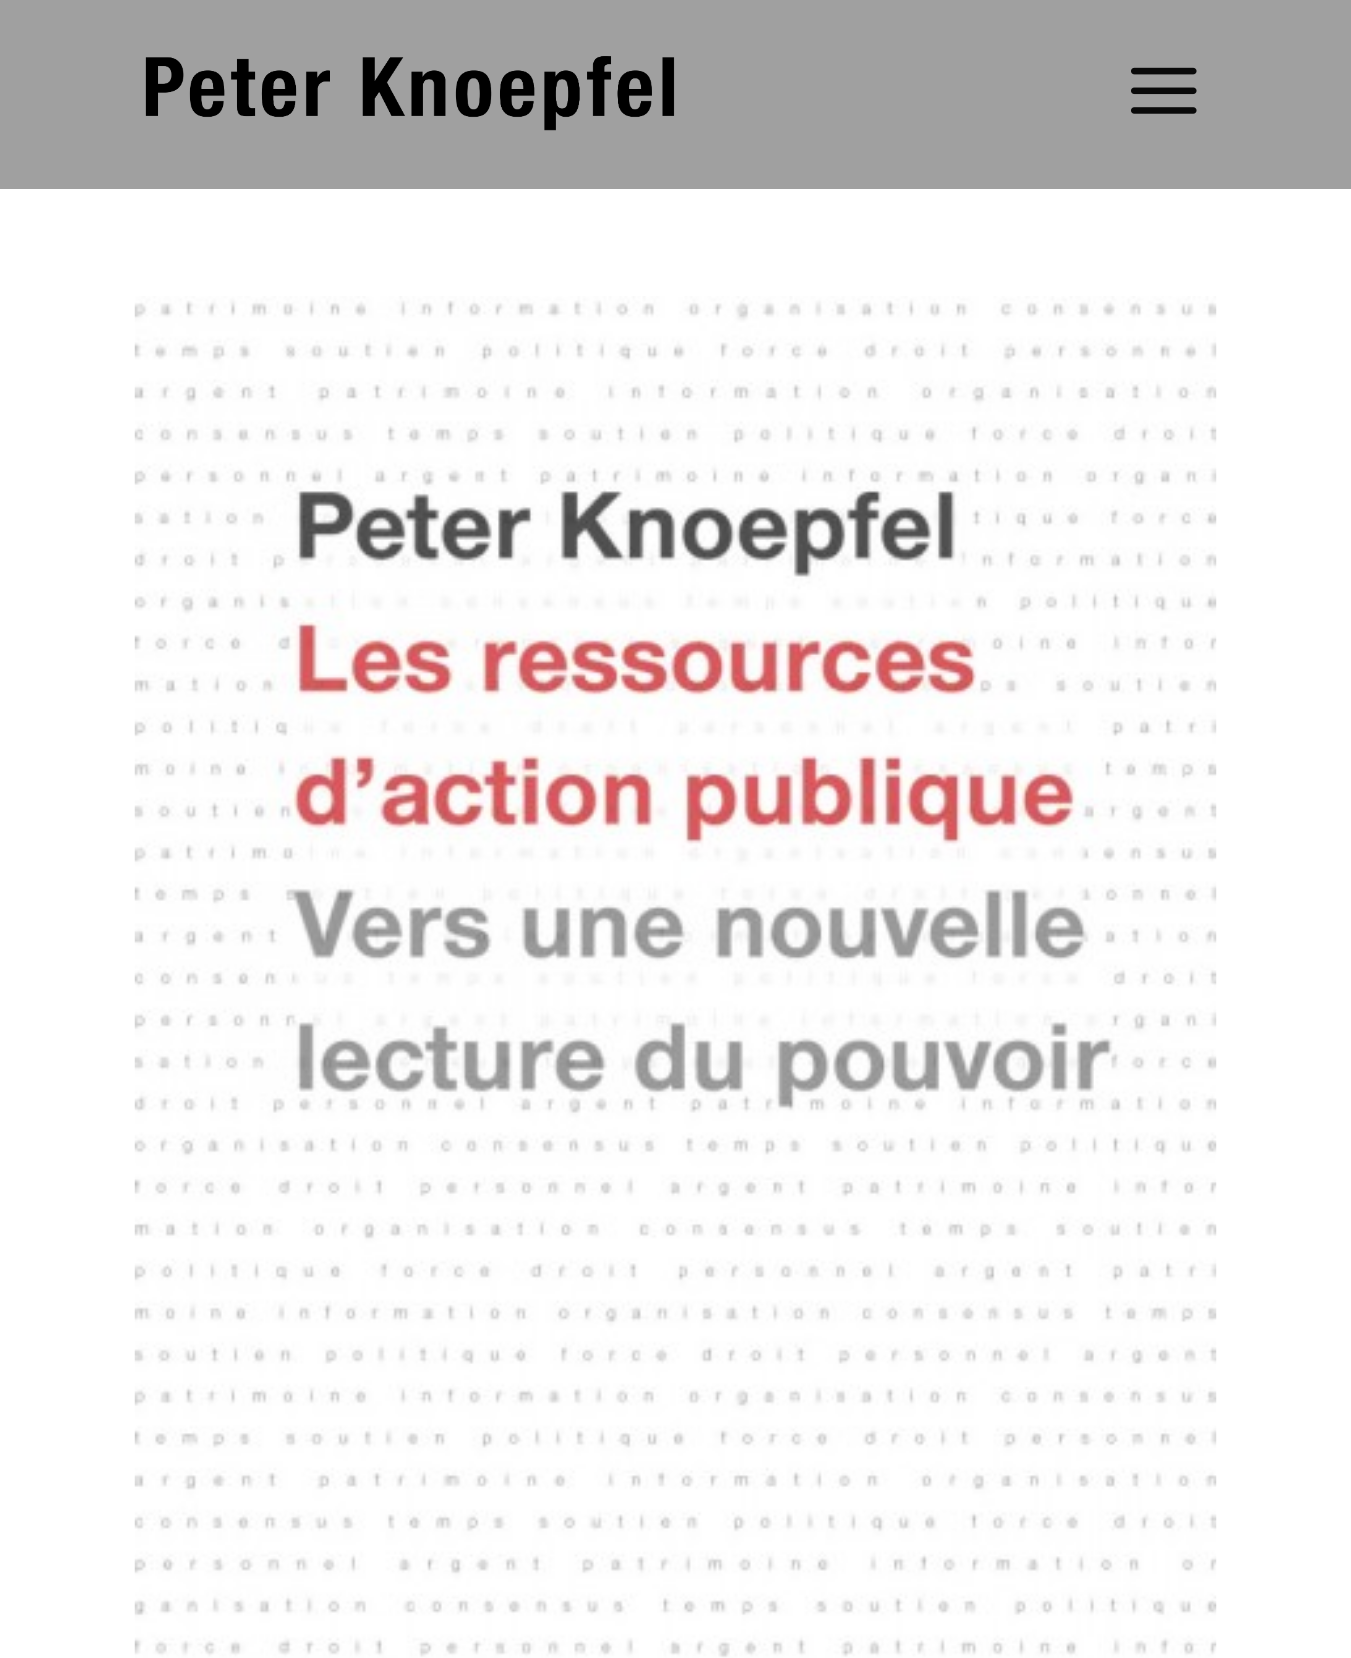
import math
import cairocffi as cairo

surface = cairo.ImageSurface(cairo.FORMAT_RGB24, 1351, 1658)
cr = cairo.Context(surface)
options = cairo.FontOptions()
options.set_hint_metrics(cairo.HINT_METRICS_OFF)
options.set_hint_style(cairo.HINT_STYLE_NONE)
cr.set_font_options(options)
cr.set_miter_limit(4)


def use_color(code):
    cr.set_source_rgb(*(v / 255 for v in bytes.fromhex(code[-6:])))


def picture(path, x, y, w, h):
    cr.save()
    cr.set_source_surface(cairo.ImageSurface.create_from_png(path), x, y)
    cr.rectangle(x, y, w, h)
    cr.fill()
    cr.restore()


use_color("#ffffff")
cr.paint()
use_color("#a0a0a0")
cr.rectangle(0, 0, 1351, 189)
cr.fill()
picture("img1.png", 145, 56, 530, 75)
picture("img2.png", 1131, 67, 66, 47)
picture("img3.png", 134, 296, 1083, 1362)
surface.write_to_png("result.png")
